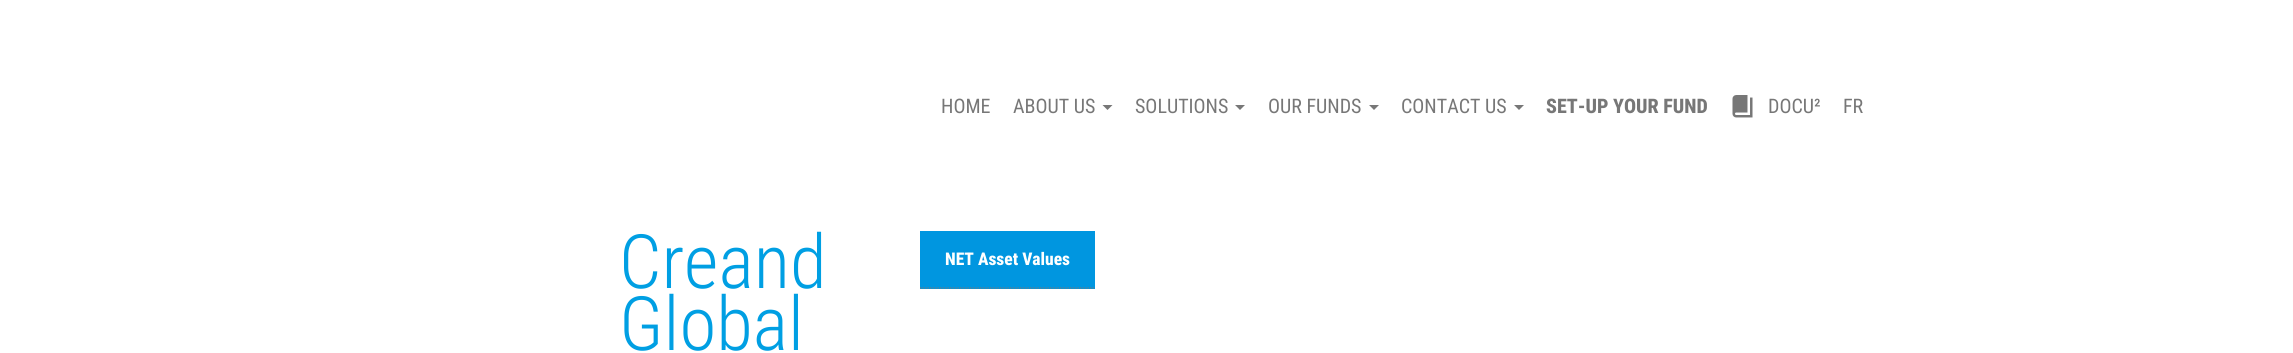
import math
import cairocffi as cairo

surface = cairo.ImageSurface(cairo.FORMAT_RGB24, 2293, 353)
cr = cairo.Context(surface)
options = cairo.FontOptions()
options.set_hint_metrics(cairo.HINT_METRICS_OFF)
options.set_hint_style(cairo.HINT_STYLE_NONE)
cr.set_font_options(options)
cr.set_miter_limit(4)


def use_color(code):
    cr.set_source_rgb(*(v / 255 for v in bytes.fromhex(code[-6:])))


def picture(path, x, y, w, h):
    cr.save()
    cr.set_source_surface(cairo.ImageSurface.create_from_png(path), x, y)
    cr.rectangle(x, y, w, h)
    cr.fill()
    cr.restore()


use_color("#ffffff")
cr.paint()
cr.select_font_face("Roboto Condensed")
cr.set_font_size(20)
use_color("#777777")
cr.move_to(941, 113)
cr.show_text("HOME")
cr.move_to(1013, 113)
cr.show_text("ABOUT US")
cr.new_path()
cr.move_to(1102.5, 105)
cr.line_to(1112.5, 105)
cr.line_to(1107.5, 110)
cr.close_path()
cr.fill()
cr.move_to(1135, 113)
cr.show_text("SOLUTIONS")
cr.new_path()
cr.move_to(1235, 105)
cr.line_to(1245, 105)
cr.line_to(1240, 110)
cr.close_path()
cr.fill()
cr.move_to(1268, 113)
cr.show_text("OUR FUNDS")
cr.new_path()
cr.move_to(1369, 105)
cr.line_to(1379, 105)
cr.line_to(1374, 110)
cr.close_path()
cr.fill()
cr.move_to(1401, 113)
cr.show_text("CONTACT US")
cr.new_path()
cr.move_to(1514, 105)
cr.line_to(1524, 105)
cr.line_to(1519, 110)
cr.close_path()
cr.fill()
cr.select_font_face("Roboto Condensed ExtraBold")
cr.move_to(1546, 113)
cr.show_text("SET-UP YOUR FUND")
picture("img1.png", 1732, 95, 21, 23)
cr.select_font_face("Roboto Condensed")
cr.move_to(1768, 113)
cr.show_text("DOCU²")
cr.move_to(1843, 113)
cr.show_text("FR")
cr.select_font_face("Roboto Condensed Light")
cr.set_font_size(75)
use_color("#009fe3")
cr.move_to(619, 288)
cr.show_text("Creand")
cr.move_to(619, 350)
cr.show_text("Global")
use_color("#0096e0")
cr.rectangle(920, 231, 175, 58)
cr.fill()
cr.new_path()
cr.move_to(920, 288)
cr.line_to(1095, 288)
use_color("#777777")
cr.set_line_width(1.2)
cr.set_dash([1.25, 1.25])
cr.stroke()
cr.select_font_face("Roboto Condensed ExtraBold")
cr.set_font_size(17.5)
use_color("#ffffff")
cr.move_to(945, 265)
cr.show_text("NET Asset Values")
surface.write_to_png("result.png")
